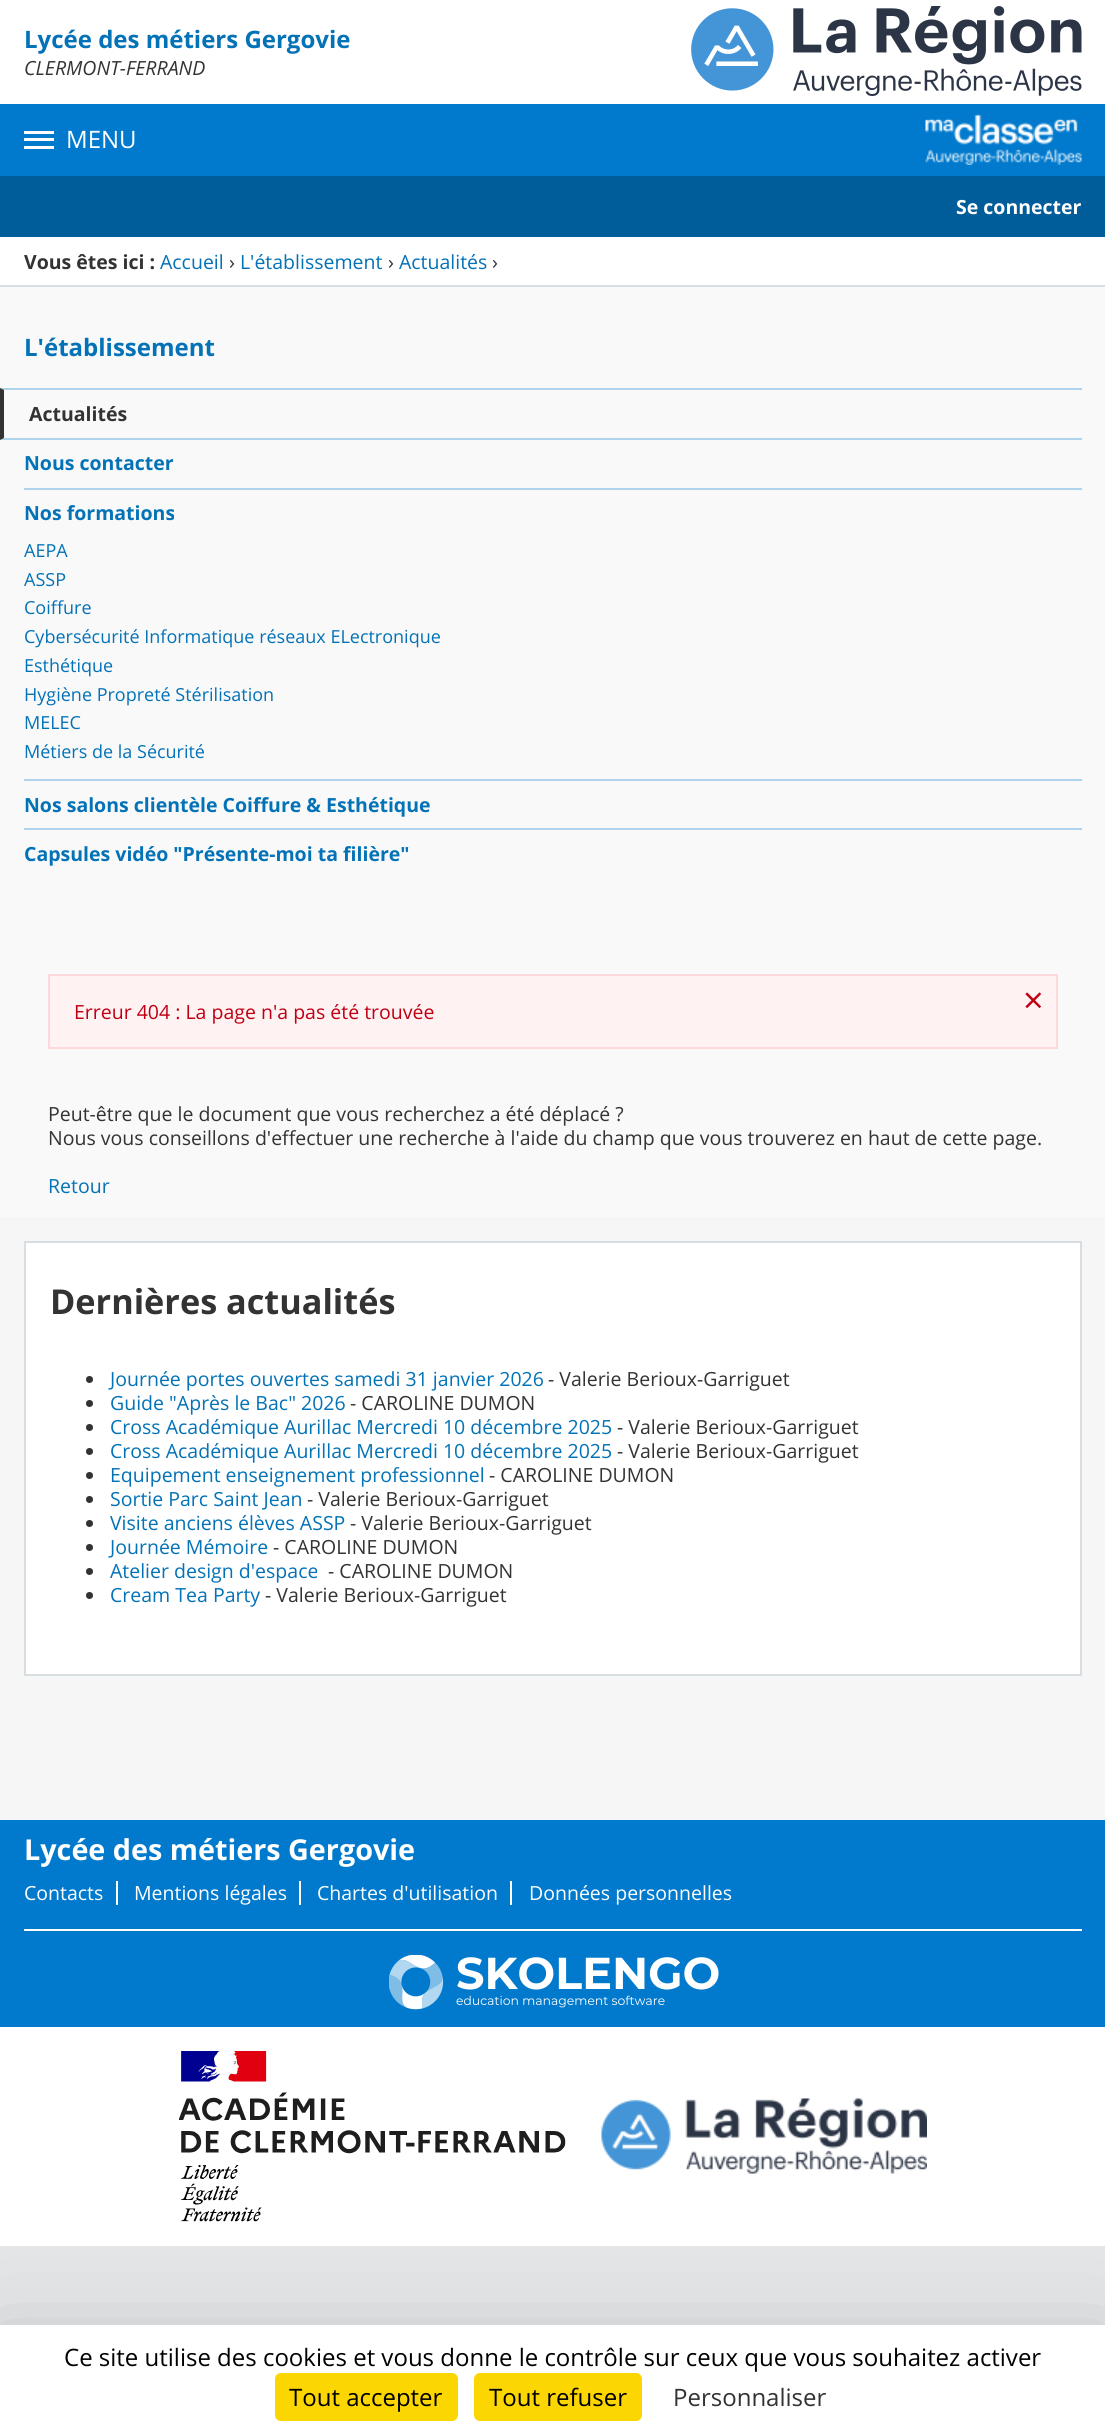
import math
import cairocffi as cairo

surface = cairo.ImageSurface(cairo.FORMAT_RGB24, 1105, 2435)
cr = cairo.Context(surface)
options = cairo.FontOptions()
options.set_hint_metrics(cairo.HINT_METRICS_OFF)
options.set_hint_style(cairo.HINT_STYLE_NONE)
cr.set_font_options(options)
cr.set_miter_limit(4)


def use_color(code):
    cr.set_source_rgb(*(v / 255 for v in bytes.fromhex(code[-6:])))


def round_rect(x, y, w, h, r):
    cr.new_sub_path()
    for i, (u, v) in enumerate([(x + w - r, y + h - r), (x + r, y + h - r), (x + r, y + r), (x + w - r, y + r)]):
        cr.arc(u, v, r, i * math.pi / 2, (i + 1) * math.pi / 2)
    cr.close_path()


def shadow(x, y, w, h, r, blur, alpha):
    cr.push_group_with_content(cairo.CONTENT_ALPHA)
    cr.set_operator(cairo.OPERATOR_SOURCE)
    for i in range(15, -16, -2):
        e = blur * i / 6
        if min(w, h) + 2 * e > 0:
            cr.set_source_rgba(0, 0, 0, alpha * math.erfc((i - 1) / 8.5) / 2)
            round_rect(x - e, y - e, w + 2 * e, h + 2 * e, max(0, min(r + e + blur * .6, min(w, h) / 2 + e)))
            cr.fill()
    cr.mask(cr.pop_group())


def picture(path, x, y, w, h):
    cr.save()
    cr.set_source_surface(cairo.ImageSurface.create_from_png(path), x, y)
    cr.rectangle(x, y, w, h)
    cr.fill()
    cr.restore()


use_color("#e4e5e7")
cr.paint()
use_color("#ffffff")
cr.rectangle(0, 0, 1105, 2246)
cr.fill()
cr.select_font_face("Open Sans", cairo.FONT_SLANT_NORMAL, cairo.FONT_WEIGHT_BOLD)
cr.set_font_size(24)
use_color("#0372b7")
cr.move_to(24, 48)
cr.show_text("Lycée des métiers Gergovie")
cr.select_font_face("Open Sans", cairo.FONT_SLANT_ITALIC)
cr.set_font_size(19.5)
use_color("#333333")
cr.move_to(24, 75)
cr.show_text("CLERMONT-FERRAND")
picture("img1.png", 691, 6, 391, 90)
use_color("#017acd")
cr.rectangle(0, 104, 1105, 72)
cr.fill()
picture("img2.png", 925, 114, 157, 51)
use_color("#ffffff")
cr.rectangle(24, 131, 30, 3)
cr.fill()
cr.rectangle(24, 138, 30, 3)
cr.fill()
cr.rectangle(24, 146, 30, 3)
cr.fill()
cr.select_font_face("Open Sans")
cr.set_font_size(24)
cr.move_to(66, 148)
cr.show_text("MENU")
use_color("#015c9a")
cr.rectangle(0, 176, 1105, 61)
cr.fill()
cr.select_font_face("Open Sans", cairo.FONT_SLANT_NORMAL, cairo.FONT_WEIGHT_BOLD)
cr.set_font_size(19.5)
use_color("#ffffff")
cr.move_to(956, 214)
cr.show_text("Se connecter")
use_color("#d7dee2")
cr.rectangle(0, 285, 1105, 2)
cr.fill()
use_color("#333333")
cr.move_to(24, 269)
cr.show_text("Vous êtes ici :")
cr.select_font_face("Open Sans")
use_color("#0372b7")
cr.move_to(160, 269)
cr.show_text("Accueil")
use_color("#333333")
cr.move_to(229, 269)
cr.show_text("›")
use_color("#0372b7")
cr.move_to(240, 269)
cr.show_text("L'établissement")
use_color("#333333")
cr.move_to(388, 269)
cr.show_text("›")
use_color("#0372b7")
cr.move_to(399, 269)
cr.show_text("Actualités")
use_color("#333333")
cr.move_to(492, 269)
cr.show_text("›")
use_color("#f9f9f9")
cr.rectangle(0, 287, 1105, 930)
cr.fill()
cr.select_font_face("Open Sans", cairo.FONT_SLANT_NORMAL, cairo.FONT_WEIGHT_BOLD)
cr.set_font_size(24)
use_color("#0372b7")
cr.move_to(24, 356)
cr.show_text("L'établissement")
use_color("#afd3ec")
cr.new_path()
cr.move_to(0, 388)
cr.line_to(1082, 388)
cr.line_to(1082, 390)
cr.line_to(4, 390)
cr.close_path()
cr.fill()
cr.new_path()
cr.move_to(1082, 440)
cr.line_to(0, 440)
cr.line_to(4, 438)
cr.line_to(1082, 438)
cr.close_path()
cr.fill()
use_color("#333333")
cr.new_path()
cr.move_to(0, 440)
cr.line_to(0, 388)
cr.line_to(4, 390)
cr.line_to(4, 438)
cr.close_path()
cr.fill()
cr.set_font_size(19.5)
cr.move_to(29, 421)
cr.show_text("Actualités")
use_color("#afd3ec")
cr.rectangle(24, 488, 1058, 2)
cr.fill()
use_color("#0372b7")
cr.move_to(24, 470)
cr.show_text("Nous contacter")
use_color("#afd3ec")
cr.rectangle(24, 779, 1058, 2)
cr.fill()
use_color("#0372b7")
cr.move_to(24, 520)
cr.show_text("Nos formations")
cr.select_font_face("Open Sans")
cr.set_font_size(18)
cr.move_to(24, 557)
cr.show_text("AEPA")
cr.move_to(24, 586)
cr.show_text("ASSP")
cr.move_to(24, 614)
cr.show_text("Coiffure")
cr.move_to(24, 643)
cr.show_text("Cybersécurité Informatique réseaux ELectronique")
cr.move_to(24, 672)
cr.show_text("Esthétique")
cr.move_to(24, 701)
cr.show_text("Hygiène Propreté Stérilisation")
cr.move_to(24, 729)
cr.show_text("MELEC")
cr.move_to(24, 758)
cr.show_text("Métiers de la Sécurité")
use_color("#afd3ec")
cr.rectangle(24, 828, 1058, 2)
cr.fill()
cr.select_font_face("Open Sans", cairo.FONT_SLANT_NORMAL, cairo.FONT_WEIGHT_BOLD)
cr.set_font_size(19.5)
use_color("#0372b7")
cr.move_to(24, 812)
cr.show_text("Nos salons clientèle Coiffure & Esthétique")
cr.move_to(24, 861)
cr.show_text("Capsules vidéo \"Présente-moi ta filière\"")
use_color("#fff2f3")
cr.rectangle(49, 975, 1008, 73)
cr.fill_preserve()
use_color("#ffd8dc")
cr.stroke()
cr.select_font_face("Open Sans")
cr.set_font_size(36)
use_color("#bf0013")
cr.move_to(1023, 1013)
cr.show_text("×")
cr.set_font_size(19.5)
cr.move_to(74, 1019)
cr.show_text("Erreur 404 : La page n'a pas été trouvée")
use_color("#333333")
cr.move_to(48, 1121)
cr.show_text("Peut-être que le document que vous recherchez a été déplacé ?")
cr.move_to(48, 1145)
cr.show_text("Nous vous conseillons d'effectuer une recherche à l'aide du champ que vous trouverez en haut de cette page.")
use_color("#0372b7")
cr.move_to(48, 1193)
cr.show_text("Retour")
use_color("#f6f6f6")
cr.rectangle(0, 1217, 1105, 603)
cr.fill()
use_color("#ffffff")
cr.rectangle(25, 1242, 1056, 433)
cr.fill_preserve()
use_color("#d7dee2")
cr.stroke()
cr.select_font_face("Open Sans", cairo.FONT_SLANT_NORMAL, cairo.FONT_WEIGHT_BOLD)
cr.set_font_size(34.25)
use_color("#333333")
cr.move_to(50, 1314)
cr.show_text("Dernières actualités")
cr.new_path()
cr.arc(89.5, 1379.5, 3.5, 0, 2 * math.pi)
cr.fill()
cr.select_font_face("Open Sans")
cr.set_font_size(19.5)
use_color("#0372b7")
cr.move_to(110, 1386)
cr.show_text("Journée portes ouvertes samedi 31 janvier 2026")
use_color("#333333")
cr.move_to(548, 1386)
cr.show_text("- Valerie Berioux-Garriguet")
cr.new_path()
cr.arc(89.5, 1403.5, 3.5, 0, 2 * math.pi)
cr.fill()
use_color("#0372b7")
cr.move_to(110, 1410)
cr.show_text("Guide \"Après le Bac\" 2026")
use_color("#333333")
cr.move_to(350, 1410)
cr.show_text("- CAROLINE DUMON")
cr.new_path()
cr.arc(89.5, 1427.5, 3.5, 0, 2 * math.pi)
cr.fill()
use_color("#0372b7")
cr.move_to(110, 1434)
cr.show_text("Cross Académique Aurillac Mercredi 10 décembre 2025")
use_color("#333333")
cr.move_to(617, 1434)
cr.show_text("- Valerie Berioux-Garriguet")
cr.new_path()
cr.arc(89.5, 1451.5, 3.5, 0, 2 * math.pi)
cr.fill()
use_color("#0372b7")
cr.move_to(110, 1458)
cr.show_text("Cross Académique Aurillac Mercredi 10 décembre 2025")
use_color("#333333")
cr.move_to(617, 1458)
cr.show_text("- Valerie Berioux-Garriguet")
cr.new_path()
cr.arc(89.5, 1475.5, 3.5, 0, 2 * math.pi)
cr.fill()
use_color("#0372b7")
cr.move_to(110, 1482)
cr.show_text("Equipement enseignement professionnel")
use_color("#333333")
cr.move_to(489, 1482)
cr.show_text("- CAROLINE DUMON")
cr.new_path()
cr.arc(89.5, 1499.5, 3.5, 0, 2 * math.pi)
cr.fill()
use_color("#0372b7")
cr.move_to(110, 1506)
cr.show_text("Sortie Parc Saint Jean")
use_color("#333333")
cr.move_to(307, 1506)
cr.show_text("- Valerie Berioux-Garriguet")
cr.new_path()
cr.arc(89.5, 1523.5, 3.5, 0, 2 * math.pi)
cr.fill()
use_color("#0372b7")
cr.move_to(110, 1530)
cr.show_text("Visite anciens élèves ASSP")
use_color("#333333")
cr.move_to(350, 1530)
cr.show_text("- Valerie Berioux-Garriguet")
cr.new_path()
cr.arc(89.5, 1547.5, 3.5, 0, 2 * math.pi)
cr.fill()
use_color("#0372b7")
cr.move_to(110, 1554)
cr.show_text("Journée Mémoire")
use_color("#333333")
cr.move_to(273, 1554)
cr.show_text("- CAROLINE DUMON")
cr.new_path()
cr.arc(89.5, 1571.5, 3.5, 0, 2 * math.pi)
cr.fill()
use_color("#0372b7")
cr.move_to(110, 1578)
cr.show_text("Atelier design d'espace")
use_color("#333333")
cr.move_to(328, 1578)
cr.show_text("- CAROLINE DUMON")
cr.new_path()
cr.arc(89.5, 1595.5, 3.5, 0, 2 * math.pi)
cr.fill()
use_color("#0372b7")
cr.move_to(110, 1602)
cr.show_text("Cream Tea Party")
use_color("#333333")
cr.move_to(265, 1602)
cr.show_text("- Valerie Berioux-Garriguet")
use_color("#017acd")
cr.rectangle(0, 1820, 1105, 207)
cr.fill()
cr.select_font_face("Open Sans", cairo.FONT_SLANT_NORMAL, cairo.FONT_WEIGHT_BOLD)
cr.set_font_size(28.75)
use_color("#ffffff")
cr.move_to(24, 1860)
cr.show_text("Lycée des métiers Gergovie")
cr.rectangle(116, 1881, 2, 24)
cr.fill()
cr.select_font_face("Open Sans")
cr.set_font_size(19.5)
cr.move_to(24, 1900)
cr.show_text("Contacts")
cr.rectangle(299, 1881, 2, 24)
cr.fill()
cr.move_to(134, 1900)
cr.show_text("Mentions légales")
cr.rectangle(510, 1881, 2, 24)
cr.fill()
cr.move_to(317, 1900)
cr.show_text("Chartes d'utilisation")
cr.move_to(529, 1900)
cr.show_text("Données personnelles")
cr.rectangle(24, 1929, 1058, 2)
cr.fill()
picture("img3.png", 389, 1955, 330, 55)
picture("img4.png", 179, 2051, 387, 171)
picture("img5.png", 601, 2098, 326, 76)
use_color("#000000")
shadow(0, 2355, 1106, 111, 0, 45, 0.25)
use_color("#ffffff")
cr.rectangle(0, 2325, 1105, 110)
cr.fill()
cr.set_font_size(24)
use_color("#000000")
cr.move_to(64, 2366)
cr.show_text("Ce site utilise des cookies et vous donne le contrôle sur ceux que vous souhaitez activer")
use_color("#fbd600")
round_rect(275, 2373, 183, 48, 6)
cr.fill()
use_color("#000000")
cr.move_to(289, 2406)
cr.show_text("Tout accepter")
use_color("#fbd600")
round_rect(474, 2373, 168, 48, 6)
cr.fill()
use_color("#000000")
cr.move_to(489, 2406)
cr.show_text("Tout refuser")
use_color("#333333")
cr.move_to(673, 2406)
cr.show_text("Personnaliser")
surface.write_to_png("result.png")
